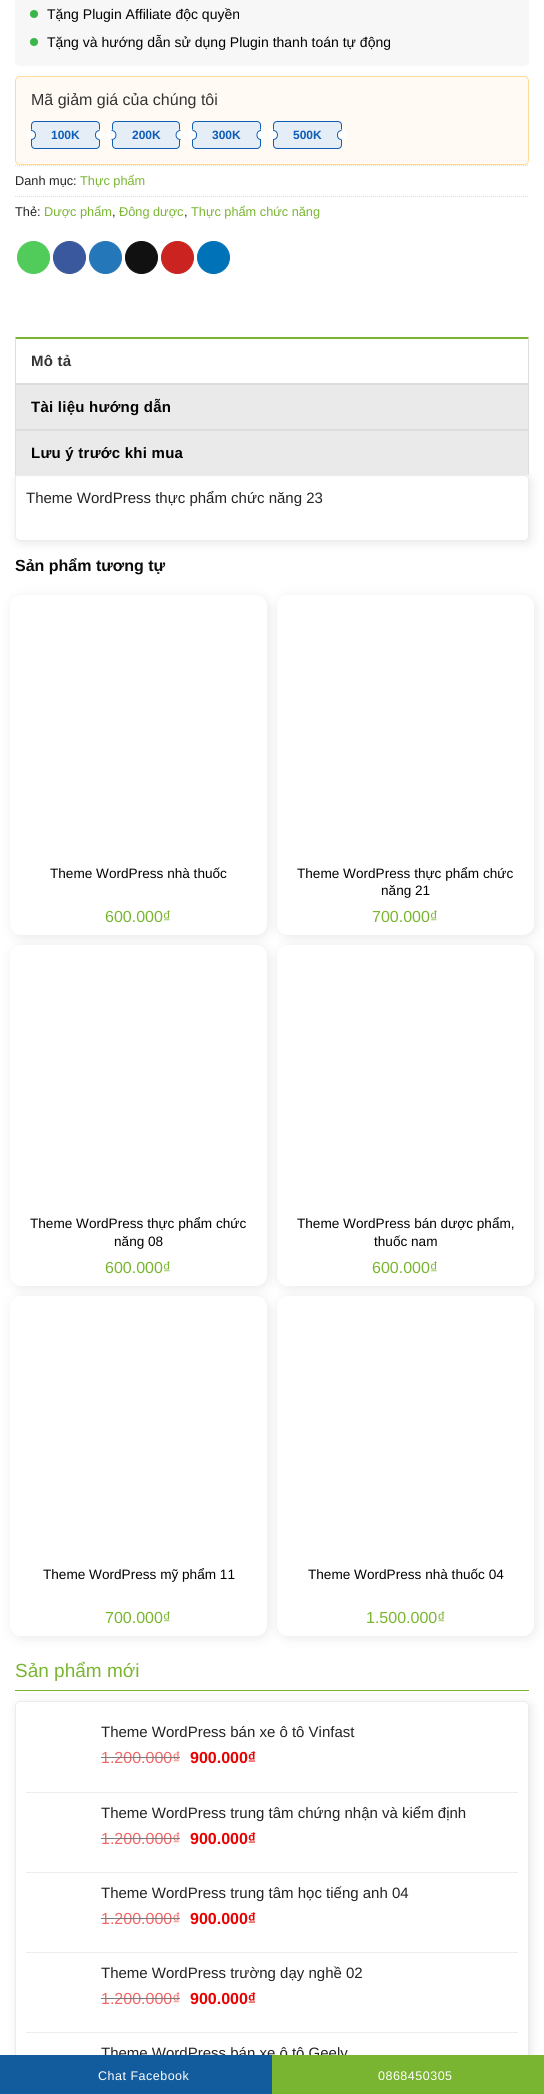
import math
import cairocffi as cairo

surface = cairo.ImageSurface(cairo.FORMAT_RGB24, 544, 2094)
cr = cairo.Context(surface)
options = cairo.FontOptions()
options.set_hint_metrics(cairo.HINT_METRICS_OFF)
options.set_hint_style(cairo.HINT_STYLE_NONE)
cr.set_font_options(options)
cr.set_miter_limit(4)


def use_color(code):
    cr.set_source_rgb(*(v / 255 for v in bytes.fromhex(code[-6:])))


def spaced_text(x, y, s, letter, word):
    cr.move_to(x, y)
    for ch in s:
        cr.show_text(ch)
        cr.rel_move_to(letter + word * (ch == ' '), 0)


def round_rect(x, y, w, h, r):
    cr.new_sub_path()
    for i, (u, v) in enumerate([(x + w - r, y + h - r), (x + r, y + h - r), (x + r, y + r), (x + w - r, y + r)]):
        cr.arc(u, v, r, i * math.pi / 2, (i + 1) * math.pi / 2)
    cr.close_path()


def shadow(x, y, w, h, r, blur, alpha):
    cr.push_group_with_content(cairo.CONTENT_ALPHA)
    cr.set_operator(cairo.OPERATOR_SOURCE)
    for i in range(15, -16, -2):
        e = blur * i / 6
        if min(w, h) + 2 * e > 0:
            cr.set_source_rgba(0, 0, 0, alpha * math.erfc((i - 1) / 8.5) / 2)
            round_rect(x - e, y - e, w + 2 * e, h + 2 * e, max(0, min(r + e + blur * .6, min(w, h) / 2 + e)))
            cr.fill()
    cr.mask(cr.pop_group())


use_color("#ffffff")
cr.paint()
use_color("#f7f7f7")
round_rect(15, -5, 514, 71, 5)
cr.fill()
use_color("#39b54a")
cr.arc(34, 14, 4, 0, 2 * math.pi)
cr.fill()
cr.select_font_face("Liberation Sans")
cr.set_font_size(14)
use_color("#000000")
cr.move_to(47, 19)
cr.show_text("Tặng Plugin Affiliate độc quyền")
use_color("#39b54a")
cr.new_path()
cr.arc(34, 42, 4, 0, 2 * math.pi)
cr.fill()
use_color("#000000")
cr.move_to(47, 47)
cr.show_text("Tặng và hướng dẫn sử dụng Plugin thanh toán tự động")
use_color("#fffbf4")
round_rect(15.5, 76.5, 513, 88, 4.5)
cr.fill_preserve()
use_color("#ffdb97")
cr.set_line_width(1)
cr.stroke()
cr.set_font_size(16)
use_color("#333333")
cr.move_to(31, 105)
cr.show_text("Mã giảm giá của chúng tôi")
use_color("#e5eef7")
round_rect(31.5, 121.5, 68, 27, 3.5)
cr.fill_preserve()
use_color("#0d5cb6")
cr.stroke()
use_color("#ffffff")
cr.new_path()
cr.move_to(27.5, 131)
cr.curve_to(32, 126.5, 39, 133.5, 34.5, 138.5)
cr.curve_to(30, 143, 23, 136, 27.5, 131)
cr.close_path()
cr.fill()
cr.new_path()
cr.move_to(31, 130.5)
cr.curve_to(37, 130.5, 37, 139.5, 31, 139.5)
use_color("#0d5cb6")
cr.stroke()
cr.select_font_face("Liberation Sans", cairo.FONT_SLANT_NORMAL, cairo.FONT_WEIGHT_BOLD)
cr.set_font_size(12)
cr.move_to(51, 139)
cr.show_text("100K")
use_color("#ffffff")
cr.new_path()
cr.move_to(103, 138.5)
cr.curve_to(98.5, 143, 91.5, 136, 96, 131)
cr.curve_to(101, 126.5, 108, 133.5, 103, 138.5)
cr.close_path()
cr.fill()
cr.new_path()
cr.move_to(99.5, 139.5)
cr.curve_to(94, 139.5, 94, 130.5, 99.5, 130.5)
use_color("#0d5cb6")
cr.stroke()
use_color("#e5eef7")
round_rect(112.5, 121.5, 67, 27, 3.5)
cr.fill_preserve()
use_color("#0d5cb6")
cr.stroke()
use_color("#ffffff")
cr.new_path()
cr.move_to(108, 131)
cr.curve_to(113, 126.5, 120, 133.5, 115, 138.5)
cr.curve_to(110.5, 143, 103.5, 136, 108, 131)
cr.close_path()
cr.fill()
cr.new_path()
cr.move_to(111.5, 130.5)
cr.curve_to(117.5, 130.5, 117.5, 139.5, 111.5, 139.5)
use_color("#0d5cb6")
cr.stroke()
cr.move_to(132, 139)
cr.show_text("200K")
use_color("#ffffff")
cr.new_path()
cr.move_to(184, 138.5)
cr.curve_to(179.5, 143, 172, 136, 177, 131)
cr.curve_to(181.5, 126.5, 188.5, 133.5, 184, 138.5)
cr.close_path()
cr.fill()
cr.new_path()
cr.move_to(180.5, 139.5)
cr.curve_to(174.5, 139.5, 174.5, 130.5, 180.5, 130.5)
use_color("#0d5cb6")
cr.stroke()
use_color("#e5eef7")
round_rect(192.5, 121.5, 68, 27, 3.5)
cr.fill_preserve()
use_color("#0d5cb6")
cr.stroke()
use_color("#ffffff")
cr.new_path()
cr.move_to(189, 131)
cr.curve_to(193.5, 126.5, 200.5, 133.5, 196, 138.5)
cr.curve_to(191.5, 143, 184, 136, 189, 131)
cr.close_path()
cr.fill()
cr.new_path()
cr.move_to(192.5, 130.5)
cr.curve_to(198, 130.5, 198, 139.5, 192.5, 139.5)
use_color("#0d5cb6")
cr.stroke()
cr.move_to(212, 139)
cr.show_text("300K")
use_color("#ffffff")
cr.new_path()
cr.move_to(264.5, 138.5)
cr.curve_to(260, 143, 253, 136, 257.5, 131)
cr.curve_to(262, 126.5, 269, 133.5, 264.5, 138.5)
cr.close_path()
cr.fill()
cr.new_path()
cr.move_to(261, 139.5)
cr.curve_to(255.5, 139.5, 255.5, 130.5, 261, 130.5)
use_color("#0d5cb6")
cr.stroke()
use_color("#e5eef7")
round_rect(273.5, 121.5, 68, 27, 3.5)
cr.fill_preserve()
use_color("#0d5cb6")
cr.stroke()
use_color("#ffffff")
cr.new_path()
cr.move_to(269.5, 131)
cr.curve_to(274, 126.5, 281, 133.5, 276.5, 138.5)
cr.curve_to(272, 143, 265, 136, 269.5, 131)
cr.close_path()
cr.fill()
cr.new_path()
cr.move_to(273, 130.5)
cr.curve_to(279, 130.5, 279, 139.5, 273, 139.5)
use_color("#0d5cb6")
cr.stroke()
cr.move_to(293, 139)
cr.show_text("500K")
use_color("#ffffff")
cr.new_path()
cr.move_to(345.5, 138.5)
cr.curve_to(340.5, 143, 333.5, 136, 338, 131)
cr.curve_to(343, 126.5, 350, 133.5, 345.5, 138.5)
cr.close_path()
cr.fill()
cr.new_path()
cr.move_to(341.5, 139.5)
cr.curve_to(336, 139.5, 336, 130.5, 341.5, 130.5)
use_color("#0d5cb6")
cr.stroke()
cr.new_path()
cr.move_to(15, 165.5)
cr.line_to(529, 165.5)
use_color("#dddddd")
cr.set_dash([1, 1])
cr.stroke()
cr.select_font_face("Liberation Sans")
cr.set_font_size(12.75)
use_color("#232323")
cr.move_to(15, 185)
cr.show_text("Danh mục:")
use_color("#79b530")
cr.move_to(80, 185)
cr.show_text("Thực phẩm")
cr.new_path()
cr.move_to(15, 196.5)
cr.line_to(529, 196.5)
use_color("#dddddd")
cr.stroke()
use_color("#232323")
cr.move_to(15, 216)
cr.show_text("Thẻ:")
use_color("#79b530")
cr.move_to(44, 216)
cr.show_text("Dược phẩm")
use_color("#232323")
cr.move_to(112, 216)
cr.show_text(",")
use_color("#79b530")
cr.move_to(119, 216)
cr.show_text("Đông dược")
use_color("#232323")
cr.move_to(184, 216)
cr.show_text(",")
use_color("#79b530")
cr.move_to(191, 216)
cr.show_text("Thực phẩm chức năng")
use_color("#51cb5a")
cr.new_path()
cr.arc(33.5, 257.5, 16, 0, 2 * math.pi)
cr.fill_preserve()
cr.set_dash([])
cr.stroke()
use_color("#3a589d")
cr.arc(69.5, 257.5, 16, 0, 2 * math.pi)
cr.fill_preserve()
cr.stroke()
use_color("#2478ba")
cr.arc(105.5, 257.5, 16, 0, 2 * math.pi)
cr.fill_preserve()
cr.stroke()
use_color("#111111")
cr.arc(141.5, 257.5, 16, 0, 2 * math.pi)
cr.fill_preserve()
cr.stroke()
use_color("#cb2320")
cr.arc(177.5, 257.5, 16, 0, 2 * math.pi)
cr.fill_preserve()
cr.stroke()
use_color("#0072b7")
cr.arc(213.5, 257.5, 16, 0, 2 * math.pi)
cr.fill_preserve()
cr.stroke()
use_color("#79b530")
cr.new_path()
cr.move_to(15, 337)
cr.line_to(529, 337)
cr.line_to(528, 339)
cr.line_to(16, 339)
cr.close_path()
cr.fill()
use_color("#dddddd")
cr.new_path()
cr.move_to(529, 337)
cr.line_to(529, 383)
cr.line_to(528, 383)
cr.line_to(528, 339)
cr.close_path()
cr.fill()
cr.new_path()
cr.move_to(15, 383)
cr.line_to(15, 337)
cr.line_to(16, 339)
cr.line_to(16, 383)
cr.close_path()
cr.fill()
cr.select_font_face("Liberation Sans", cairo.FONT_SLANT_NORMAL, cairo.FONT_WEIGHT_BOLD)
cr.set_font_size(15)
use_color("#333333")
spaced_text(31, 366, "Mô tả", 0.25, 0)
use_color("#eaeaea")
cr.rectangle(16, 385, 512, 44)
cr.fill()
use_color("#dddddd")
cr.rectangle(15, 383, 514, 2)
cr.fill()
cr.rectangle(528, 383, 1, 46)
cr.fill()
cr.rectangle(15, 383, 1, 46)
cr.fill()
use_color("#000000")
spaced_text(31, 412, "Tài liệu hướng dẫn", 0.25, 0)
use_color("#000000")
shadow(17, 477, 514, 66, 5, 5, 0.1)
use_color("#eaeaea")
cr.rectangle(16, 431, 512, 44)
cr.fill()
use_color("#dddddd")
cr.rectangle(15, 429, 514, 2)
cr.fill()
cr.rectangle(528, 429, 1, 46)
cr.fill()
cr.rectangle(15, 429, 1, 46)
cr.fill()
use_color("#000000")
spaced_text(31, 458, "Lưu ý trước khi mua", 0.25, 0)
use_color("#ffffff")
cr.new_path()
cr.move_to(15.5, 475.5)
cr.line_to(524, 475.5)
cr.curve_to(526.5, 475.5, 528.5, 477.5, 528.5, 480)
cr.line_to(528.5, 536)
cr.curve_to(528.5, 538.5, 526.5, 540.5, 524, 540.5)
cr.line_to(20, 540.5)
cr.curve_to(17.5, 540.5, 15.5, 538.5, 15.5, 536)
cr.close_path()
cr.fill_preserve()
use_color("#ececec")
cr.stroke()
cr.select_font_face("Liberation Sans")
use_color("#232323")
cr.move_to(26, 503)
cr.show_text("Theme WordPress thực phẩm chức năng 23")
cr.select_font_face("Liberation Sans", cairo.FONT_SLANT_NORMAL, cairo.FONT_WEIGHT_BOLD)
cr.set_font_size(16)
use_color("#0a0a0a")
cr.move_to(15, 571)
cr.show_text("Sản phẩm tương tự")
use_color("#000000")
shadow(12, 597, 257, 340, 11, 6, 0.09)
use_color("#ffffff")
round_rect(10, 595, 257, 340, 11)
cr.fill()
cr.select_font_face("Liberation Sans")
cr.set_font_size(13.6)
use_color("#000000")
cr.move_to(50, 878)
cr.show_text("Theme WordPress nhà thuốc")
cr.set_font_size(16)
use_color("#79b530")
cr.move_to(105, 922)
cr.show_text("600.000₫")
use_color("#000000")
shadow(279, 597, 257, 340, 11, 6, 0.09)
use_color("#ffffff")
round_rect(277, 595, 257, 340, 11)
cr.fill()
cr.set_font_size(13.6)
use_color("#000000")
cr.move_to(297, 878)
cr.show_text("Theme WordPress thực phẩm chức")
cr.move_to(381, 895)
cr.show_text("năng 21")
cr.set_font_size(16)
use_color("#79b530")
cr.move_to(372, 922)
cr.show_text("700.000₫")
use_color("#000000")
shadow(12, 947, 257, 341, 11, 6, 0.09)
use_color("#ffffff")
round_rect(10, 945, 257, 341, 11)
cr.fill()
cr.set_font_size(13.6)
use_color("#000000")
cr.move_to(30, 1228)
cr.show_text("Theme WordPress thực phẩm chức")
cr.move_to(114, 1246)
cr.show_text("năng 08")
cr.set_font_size(16)
use_color("#79b530")
cr.move_to(105, 1273)
cr.show_text("600.000₫")
use_color("#000000")
shadow(279, 947, 257, 341, 11, 6, 0.09)
use_color("#ffffff")
round_rect(277, 945, 257, 341, 11)
cr.fill()
cr.set_font_size(13.6)
use_color("#000000")
cr.move_to(297, 1228)
cr.show_text("Theme WordPress bán dược phẩm,")
cr.move_to(374, 1246)
cr.show_text("thuốc nam")
cr.set_font_size(16)
use_color("#79b530")
cr.move_to(372, 1273)
cr.show_text("600.000₫")
use_color("#000000")
shadow(12, 1298, 257, 340, 11, 6, 0.09)
use_color("#ffffff")
round_rect(10, 1296, 257, 340, 11)
cr.fill()
cr.set_font_size(13.6)
use_color("#000000")
cr.move_to(43, 1579)
cr.show_text("Theme WordPress mỹ phẩm 11")
cr.set_font_size(16)
use_color("#79b530")
cr.move_to(105, 1623)
cr.show_text("700.000₫")
use_color("#000000")
shadow(279, 1298, 257, 340, 11, 6, 0.09)
use_color("#ffffff")
round_rect(277, 1296, 257, 340, 11)
cr.fill()
cr.set_font_size(13.6)
use_color("#000000")
cr.move_to(308, 1579)
cr.show_text("Theme WordPress nhà thuốc 04")
cr.set_font_size(16)
use_color("#79b530")
cr.move_to(366, 1623)
cr.show_text("1.500.000₫")
cr.rectangle(15, 1690, 514, 1)
cr.fill()
cr.set_font_size(19)
cr.move_to(15, 1677)
cr.show_text("Sản phẩm mới")
cr.save()
cr.set_fill_rule(cairo.FILL_RULE_EVEN_ODD)
cr.new_path()
cr.move_to(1, 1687)
cr.line_to(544, 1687)
cr.line_to(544, 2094)
cr.line_to(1, 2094)
cr.close_path()
cr.move_to(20, 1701)
cr.line_to(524, 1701)
cr.curve_to(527, 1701, 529, 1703, 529, 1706)
cr.line_to(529, 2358)
cr.curve_to(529, 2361, 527, 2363, 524, 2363)
cr.line_to(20, 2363)
cr.curve_to(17, 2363, 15, 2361, 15, 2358)
cr.line_to(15, 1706)
cr.curve_to(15, 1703, 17, 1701, 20, 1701)
cr.close_path()
cr.clip()
use_color("#000000")
shadow(17, 1703, 514, 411, 5, 5, 0.1)
cr.restore()
round_rect(15.5, 1701.5, 513, 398, 4.5)
use_color("#ececec")
cr.stroke()
cr.set_font_size(15)
use_color("#232323")
cr.move_to(101, 1737)
cr.show_text("Theme WordPress bán xe ô tô Vinfast")
cr.set_font_size(16)
use_color("#f16666")
cr.move_to(101, 1763)
cr.show_text("1.200.000₫")
use_color("#7b7b7b")
cr.rectangle(101, 1757, 79, 1)
cr.fill()
cr.select_font_face("Liberation Sans", cairo.FONT_SLANT_NORMAL, cairo.FONT_WEIGHT_BOLD)
use_color("#e80000")
cr.move_to(190, 1763)
cr.show_text("900.000₫")
use_color("#ececec")
cr.rectangle(26, 1792, 492, 1)
cr.fill()
cr.select_font_face("Liberation Sans")
cr.set_font_size(15)
use_color("#232323")
cr.move_to(101, 1818)
cr.show_text("Theme WordPress trung tâm chứng nhận và kiểm định")
cr.set_font_size(16)
use_color("#f16666")
cr.move_to(101, 1844)
cr.show_text("1.200.000₫")
use_color("#7b7b7b")
cr.rectangle(101, 1838, 79, 1)
cr.fill()
cr.select_font_face("Liberation Sans", cairo.FONT_SLANT_NORMAL, cairo.FONT_WEIGHT_BOLD)
use_color("#e80000")
cr.move_to(190, 1844)
cr.show_text("900.000₫")
use_color("#ececec")
cr.rectangle(26, 1872, 492, 1)
cr.fill()
cr.select_font_face("Liberation Sans")
cr.set_font_size(15)
use_color("#232323")
cr.move_to(101, 1898)
cr.show_text("Theme WordPress trung tâm học tiếng anh 04")
cr.set_font_size(16)
use_color("#f16666")
cr.move_to(101, 1924)
cr.show_text("1.200.000₫")
use_color("#7b7b7b")
cr.rectangle(101, 1918, 79, 1)
cr.fill()
cr.select_font_face("Liberation Sans", cairo.FONT_SLANT_NORMAL, cairo.FONT_WEIGHT_BOLD)
use_color("#e80000")
cr.move_to(190, 1924)
cr.show_text("900.000₫")
use_color("#ececec")
cr.rectangle(26, 1952, 492, 1)
cr.fill()
cr.select_font_face("Liberation Sans")
cr.set_font_size(15)
use_color("#232323")
cr.move_to(101, 1978)
cr.show_text("Theme WordPress trường dạy nghề 02")
cr.set_font_size(16)
use_color("#f16666")
cr.move_to(101, 2004)
cr.show_text("1.200.000₫")
use_color("#7b7b7b")
cr.rectangle(101, 1998, 79, 1)
cr.fill()
cr.select_font_face("Liberation Sans", cairo.FONT_SLANT_NORMAL, cairo.FONT_WEIGHT_BOLD)
use_color("#e80000")
cr.move_to(190, 2004)
cr.show_text("900.000₫")
use_color("#ececec")
cr.rectangle(26, 2032, 492, 1)
cr.fill()
cr.select_font_face("Liberation Sans")
cr.set_font_size(15)
use_color("#232323")
cr.move_to(101, 2058)
cr.show_text("Theme WordPress bán xe ô tô Geely")
use_color("#125c9e")
cr.rectangle(0, 2055, 272, 39)
cr.fill()
cr.set_font_size(12.5)
use_color("#ffffff")
spaced_text(98, 2080, "Chat Facebook", 0.5, 0)
use_color("#79b530")
cr.rectangle(272, 2055, 272, 39)
cr.fill()
use_color("#ffffff")
spaced_text(378, 2080, "0868450305", 0.5, 0)
surface.write_to_png("result.png")
